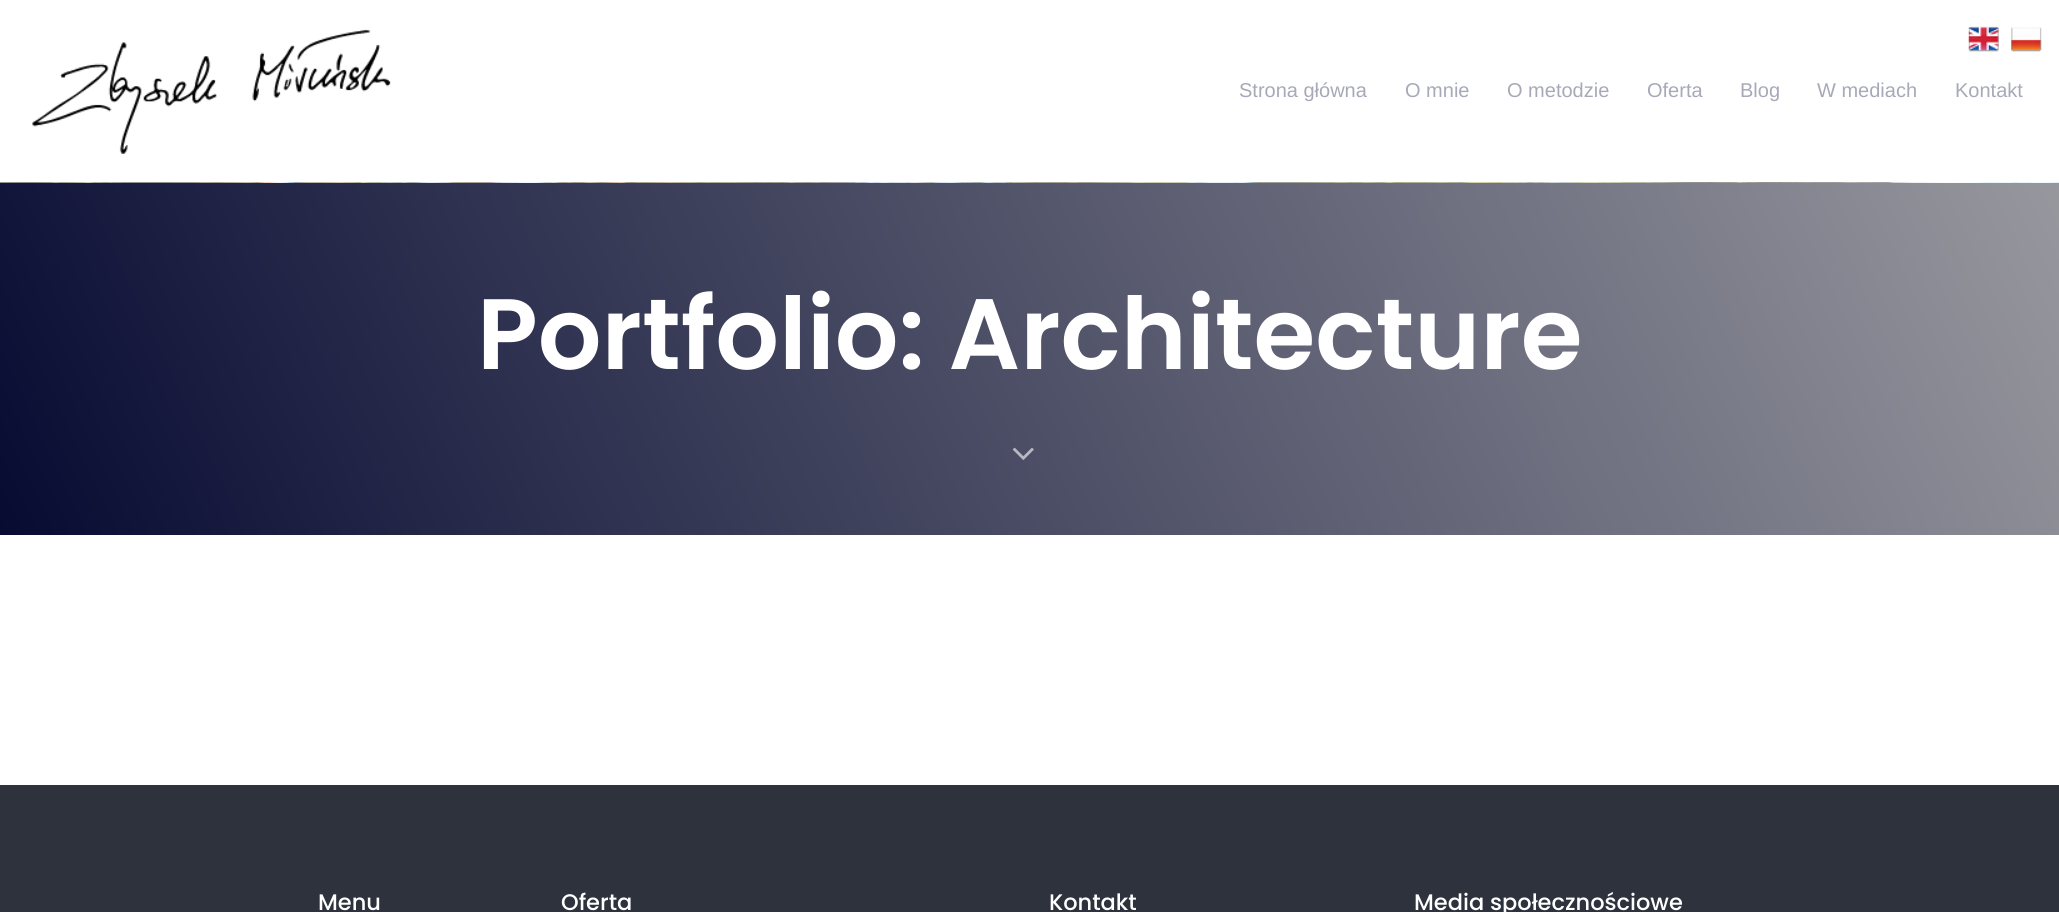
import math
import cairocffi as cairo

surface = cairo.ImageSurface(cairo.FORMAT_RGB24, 2059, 912)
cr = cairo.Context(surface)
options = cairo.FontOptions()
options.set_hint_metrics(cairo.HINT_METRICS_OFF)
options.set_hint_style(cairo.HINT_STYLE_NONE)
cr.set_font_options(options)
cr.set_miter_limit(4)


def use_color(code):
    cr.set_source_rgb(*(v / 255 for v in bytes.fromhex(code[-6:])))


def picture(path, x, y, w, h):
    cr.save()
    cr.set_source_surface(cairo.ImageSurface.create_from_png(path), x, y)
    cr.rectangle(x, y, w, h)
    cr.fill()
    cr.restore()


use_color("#ffffff")
cr.paint()
picture("img1.png", 1968, 26, 31, 26)
picture("img2.png", 2011, 27, 31, 25)
picture("img3.png", 32, 29, 359, 125)
cr.select_font_face("Liberation Sans")
cr.set_font_size(20)
use_color("#a7a9b8")
cr.move_to(1239, 97)
cr.show_text("Strona główna")
cr.move_to(1405, 97)
cr.show_text("O mnie")
cr.move_to(1507, 97)
cr.show_text("O metodzie")
cr.move_to(1647, 97)
cr.show_text("Oferta")
cr.move_to(1740, 97)
cr.show_text("Blog")
cr.move_to(1817, 97)
cr.show_text("W mediach")
cr.move_to(1955, 97)
cr.show_text("Kontakt")
picture("img4.png", 0, 182, 2059, 1)
gradient = cairo.LinearGradient(116, 785, 1944, -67)
gradient.add_color_stop_rgba(0, 0.027, 0.043, 0.196, 1)
gradient.add_color_stop_rgba(1, 0.592, 0.592, 0.62, 1)
cr.set_source(gradient)
cr.rectangle(0, 183, 2059, 352)
cr.fill()
cr.select_font_face("Poppins SemiBold")
cr.set_font_size(100)
use_color("#ffffff")
cr.move_to(477, 369)
cr.show_text("Portfolio: Architecture")
picture("img5.png", 1012, 447, 22, 13)
use_color("#2d323d")
cr.rectangle(0, 785, 2059, 127)
cr.fill()
cr.select_font_face("Poppins Medium")
cr.set_font_size(22.5)
use_color("#ffffff")
cr.move_to(318, 910)
cr.show_text("Menu")
cr.move_to(561, 910)
cr.show_text("Oferta")
cr.move_to(1049, 910)
cr.show_text("Kontakt")
cr.move_to(1414, 910)
cr.show_text("Media społecznościowe")
surface.write_to_png("result.png")
